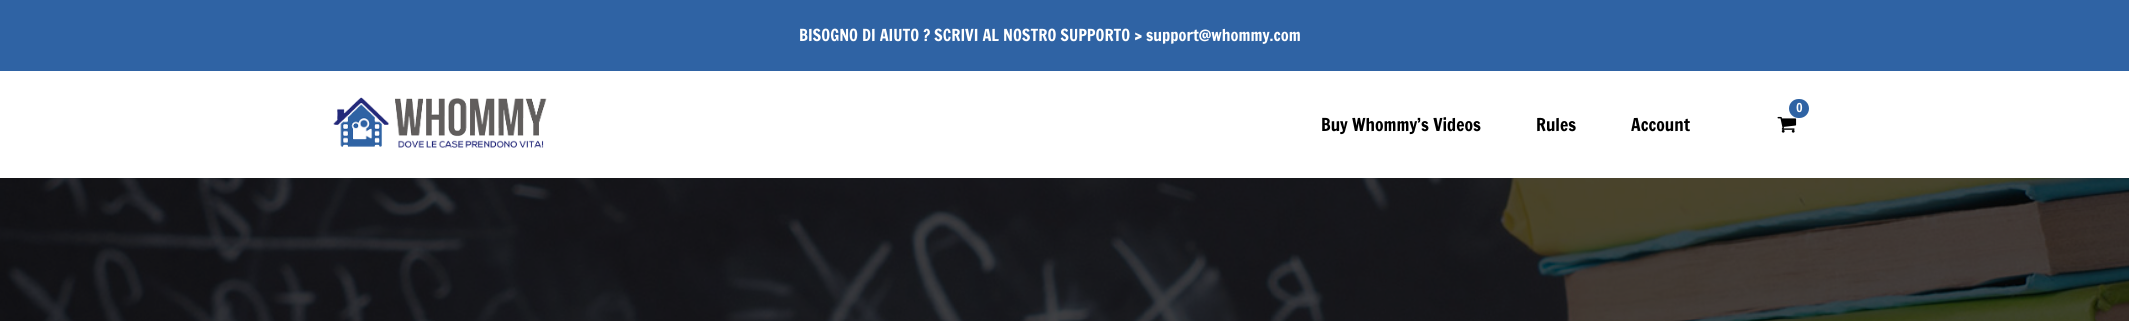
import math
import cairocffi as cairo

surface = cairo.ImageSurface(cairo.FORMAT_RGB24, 2129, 321)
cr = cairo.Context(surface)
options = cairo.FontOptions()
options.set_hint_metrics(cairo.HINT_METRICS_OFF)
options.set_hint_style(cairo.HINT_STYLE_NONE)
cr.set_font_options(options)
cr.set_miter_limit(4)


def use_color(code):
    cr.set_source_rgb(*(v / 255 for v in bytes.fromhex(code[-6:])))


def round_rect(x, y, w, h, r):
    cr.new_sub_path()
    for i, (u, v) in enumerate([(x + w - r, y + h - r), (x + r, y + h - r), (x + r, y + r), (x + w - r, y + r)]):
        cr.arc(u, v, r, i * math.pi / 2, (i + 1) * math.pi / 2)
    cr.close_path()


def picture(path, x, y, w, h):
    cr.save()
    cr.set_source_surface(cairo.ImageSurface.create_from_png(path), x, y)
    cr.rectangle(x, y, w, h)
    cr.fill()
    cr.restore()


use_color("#ffffff")
cr.paint()
use_color("#2f63a4")
cr.rectangle(0, 0, 2129, 71)
cr.fill()
cr.select_font_face("Francois One")
cr.set_font_size(16.25)
use_color("#ffffff")
cr.move_to(799, 41)
cr.show_text("BISOGNO DI AIUTO ? SCRIVI AL NOSTRO SUPPORTO > support@whommy.com")
picture("img1.png", 333, 97, 214, 51)
picture("img2.png", 1777, 116, 20, 17)
use_color("#2f63a4")
round_rect(1789, 99, 20, 19, 9.5)
cr.fill()
cr.set_font_size(12)
use_color("#ffffff")
cr.move_to(1796, 112)
cr.show_text("0")
cr.set_font_size(17.5)
use_color("#000000")
cr.move_to(1321, 131)
cr.show_text("Buy Whommy’s Videos")
cr.move_to(1536, 131)
cr.show_text("Rules")
cr.move_to(1631, 131)
cr.show_text("Account")
picture("img3.png", 0, 178, 2129, 143)
surface.write_to_png("result.png")
